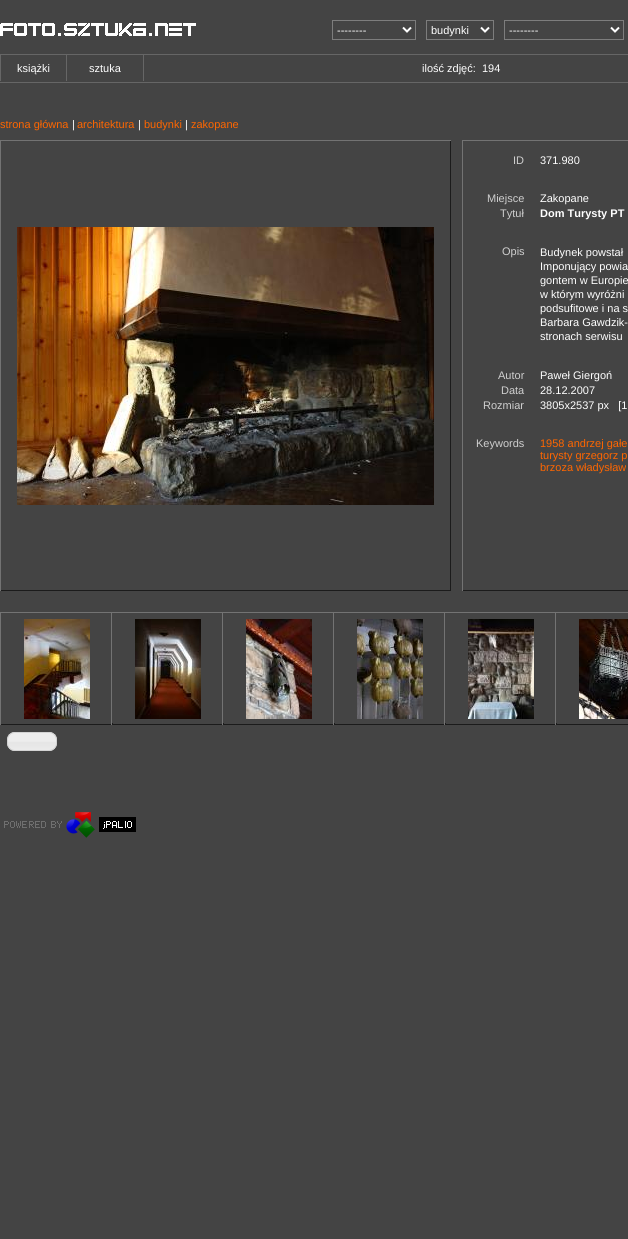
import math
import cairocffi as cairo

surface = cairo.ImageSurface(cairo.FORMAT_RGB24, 628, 1239)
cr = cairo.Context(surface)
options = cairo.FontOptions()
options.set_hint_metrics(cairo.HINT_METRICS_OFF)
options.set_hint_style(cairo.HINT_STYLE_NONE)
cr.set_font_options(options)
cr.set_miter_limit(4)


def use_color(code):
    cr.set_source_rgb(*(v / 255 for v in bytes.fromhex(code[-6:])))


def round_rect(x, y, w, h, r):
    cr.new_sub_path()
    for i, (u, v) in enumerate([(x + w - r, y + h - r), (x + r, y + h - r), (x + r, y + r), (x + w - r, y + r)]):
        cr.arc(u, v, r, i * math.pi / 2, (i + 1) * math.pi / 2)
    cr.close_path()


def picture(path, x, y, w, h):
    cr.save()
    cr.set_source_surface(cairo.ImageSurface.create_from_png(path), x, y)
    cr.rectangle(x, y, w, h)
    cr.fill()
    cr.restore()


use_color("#444444")
cr.paint()
picture("img1.png", 0, 23, 61, 13)
picture("img2.png", 64, 23, 132, 13)
cr.rectangle(332.5, 20.5, 83, 19)
use_color("#7d7d7d")
cr.set_line_width(1)
cr.stroke()
cr.new_path()
cr.move_to(403, 27.5)
cr.line_to(407, 31.5)
cr.line_to(411, 27.5)
use_color("#ffffff")
cr.set_line_width(2)
cr.stroke()
cr.select_font_face("Liberation Sans")
cr.set_font_size(11)
cr.move_to(337, 34)
cr.show_text("--------")
cr.rectangle(426.5, 20.5, 67, 19)
use_color("#7d7d7d")
cr.set_line_width(1)
cr.stroke()
cr.new_path()
cr.move_to(481, 27.5)
cr.line_to(485, 31.5)
cr.line_to(489, 27.5)
use_color("#ffffff")
cr.set_line_width(2)
cr.stroke()
cr.move_to(431, 34)
cr.show_text("budynki")
cr.rectangle(504.5, 20.5, 119, 19)
use_color("#7d7d7d")
cr.set_line_width(1)
cr.stroke()
cr.new_path()
cr.move_to(611, 27.5)
cr.line_to(615, 31.5)
cr.line_to(619, 27.5)
use_color("#ffffff")
cr.set_line_width(2)
cr.stroke()
cr.move_to(509, 34)
cr.show_text("--------")
use_color("#666666")
cr.rectangle(0, 54, 628, 1)
cr.fill()
cr.rectangle(0, 55, 1, 26)
cr.fill()
use_color("#ffffff")
cr.move_to(17, 72)
cr.show_text("książki")
use_color("#666666")
cr.rectangle(66, 55, 1, 26)
cr.fill()
use_color("#ffffff")
cr.move_to(89, 72)
cr.show_text("sztuka")
use_color("#666666")
cr.rectangle(143, 55, 1, 26)
cr.fill()
use_color("#ffffff")
cr.move_to(422, 72)
cr.show_text("ilość zdjęć:  194")
use_color("#666666")
cr.rectangle(0, 82, 628, 1)
cr.fill()
use_color("#ff6600")
cr.move_to(0, 128)
cr.show_text("strona główna")
use_color("#ffffff")
cr.move_to(72, 128)
cr.show_text("|")
use_color("#ff6600")
cr.move_to(77, 128)
cr.show_text("architektura")
use_color("#ffffff")
cr.move_to(138, 128)
cr.show_text("|")
use_color("#ff6600")
cr.move_to(144, 128)
cr.show_text("budynki")
use_color("#ffffff")
cr.move_to(185, 128)
cr.show_text("|")
use_color("#ff6600")
cr.move_to(191, 128)
cr.show_text("zakopane")
use_color("#737373")
cr.rectangle(0, 140, 451, 1)
cr.fill()
cr.rectangle(0, 141, 1, 450)
cr.fill()
picture("img3.png", 17, 227, 417, 278)
use_color("#1b1b1b")
cr.rectangle(450, 141, 1, 449)
cr.fill()
cr.rectangle(1, 590, 450, 1)
cr.fill()
use_color("#737373")
cr.rectangle(462, 140, 166, 1)
cr.fill()
cr.rectangle(462, 141, 1, 450)
cr.fill()
use_color("#cfcfcf")
cr.move_to(513, 164)
cr.show_text("ID")
use_color("#ffffff")
cr.move_to(540, 164)
cr.show_text("371.980")
use_color("#cfcfcf")
cr.move_to(487, 202)
cr.show_text("Miejsce")
use_color("#ffffff")
cr.move_to(540, 202)
cr.show_text("Zakopane")
use_color("#cfcfcf")
cr.move_to(500, 217)
cr.show_text("Tytuł")
cr.select_font_face("Liberation Sans", cairo.FONT_SLANT_NORMAL, cairo.FONT_WEIGHT_BOLD)
use_color("#ffffff")
cr.move_to(540, 217)
cr.show_text("Dom Turysty PT")
cr.select_font_face("Liberation Sans")
use_color("#cfcfcf")
cr.move_to(502, 255)
cr.show_text("Opis")
use_color("#ffffff")
cr.move_to(540, 256)
cr.show_text("Budynek powstał")
cr.move_to(540, 270)
cr.show_text("Imponujący powia")
cr.move_to(540, 284)
cr.show_text("gontem w Europie")
cr.move_to(540, 298)
cr.show_text("w którym wyróżni")
cr.move_to(540, 312)
cr.show_text("podsufitowe i na s")
cr.move_to(540, 326)
cr.show_text("Barbara Gawdzik-")
cr.move_to(540, 340)
cr.show_text("stronach serwisu")
use_color("#cfcfcf")
cr.move_to(498, 379)
cr.show_text("Autor")
use_color("#ffffff")
cr.move_to(540, 379)
cr.show_text("Paweł Giergoń")
use_color("#cfcfcf")
cr.move_to(501, 394)
cr.show_text("Data")
use_color("#ffffff")
cr.move_to(540, 394)
cr.show_text("28.12.2007")
use_color("#cfcfcf")
cr.move_to(483, 409)
cr.show_text("Rozmiar")
use_color("#ffffff")
cr.move_to(540, 409)
cr.show_text("3805x2537 px   [1")
use_color("#cfcfcf")
cr.move_to(476, 447)
cr.show_text("Keywords")
use_color("#ff6600")
cr.move_to(540, 447)
cr.show_text("1958 andrzej gałe")
cr.move_to(540, 459)
cr.show_text("turysty grzegorz p")
cr.move_to(540, 471)
cr.show_text("brzoza władysław")
use_color("#1b1b1b")
cr.rectangle(463, 590, 165, 1)
cr.fill()
use_color("#737373")
cr.rectangle(0, 612, 628, 1)
cr.fill()
use_color("#1b1b1b")
cr.rectangle(112, 723, 1, 2)
cr.fill()
cr.rectangle(0, 724, 113, 1)
cr.fill()
use_color("#737373")
cr.rectangle(0, 612, 1, 113)
cr.fill()
picture("img4.png", 24, 619, 66, 100)
use_color("#1b1b1b")
cr.rectangle(223, 723, 1, 2)
cr.fill()
cr.rectangle(111, 724, 113, 1)
cr.fill()
use_color("#737373")
cr.rectangle(111, 612, 1, 113)
cr.fill()
picture("img5.png", 135, 619, 66, 100)
use_color("#1b1b1b")
cr.rectangle(334, 723, 1, 2)
cr.fill()
cr.rectangle(222, 724, 113, 1)
cr.fill()
use_color("#737373")
cr.rectangle(222, 612, 1, 113)
cr.fill()
picture("img6.png", 246, 619, 66, 100)
use_color("#1b1b1b")
cr.rectangle(445, 723, 1, 2)
cr.fill()
cr.rectangle(333, 724, 113, 1)
cr.fill()
use_color("#737373")
cr.rectangle(333, 612, 1, 113)
cr.fill()
picture("img7.png", 357, 619, 66, 100)
use_color("#1b1b1b")
cr.rectangle(556, 723, 1, 2)
cr.fill()
cr.rectangle(444, 724, 184, 1)
cr.fill()
use_color("#737373")
cr.rectangle(444, 612, 1, 113)
cr.fill()
picture("img8.png", 468, 619, 66, 100)
cr.rectangle(555, 612, 1, 113)
cr.fill()
picture("img9.png", 579, 619, 49, 100)
picture("img10.png", 7, 732, 50, 19)
round_rect(7.5, 732.5, 49, 18, 7.5)
use_color("#d3d3d3")
cr.set_line_width(1)
cr.stroke()
picture("img11.png", 4, 812, 132, 26)
surface.write_to_png("result.png")
